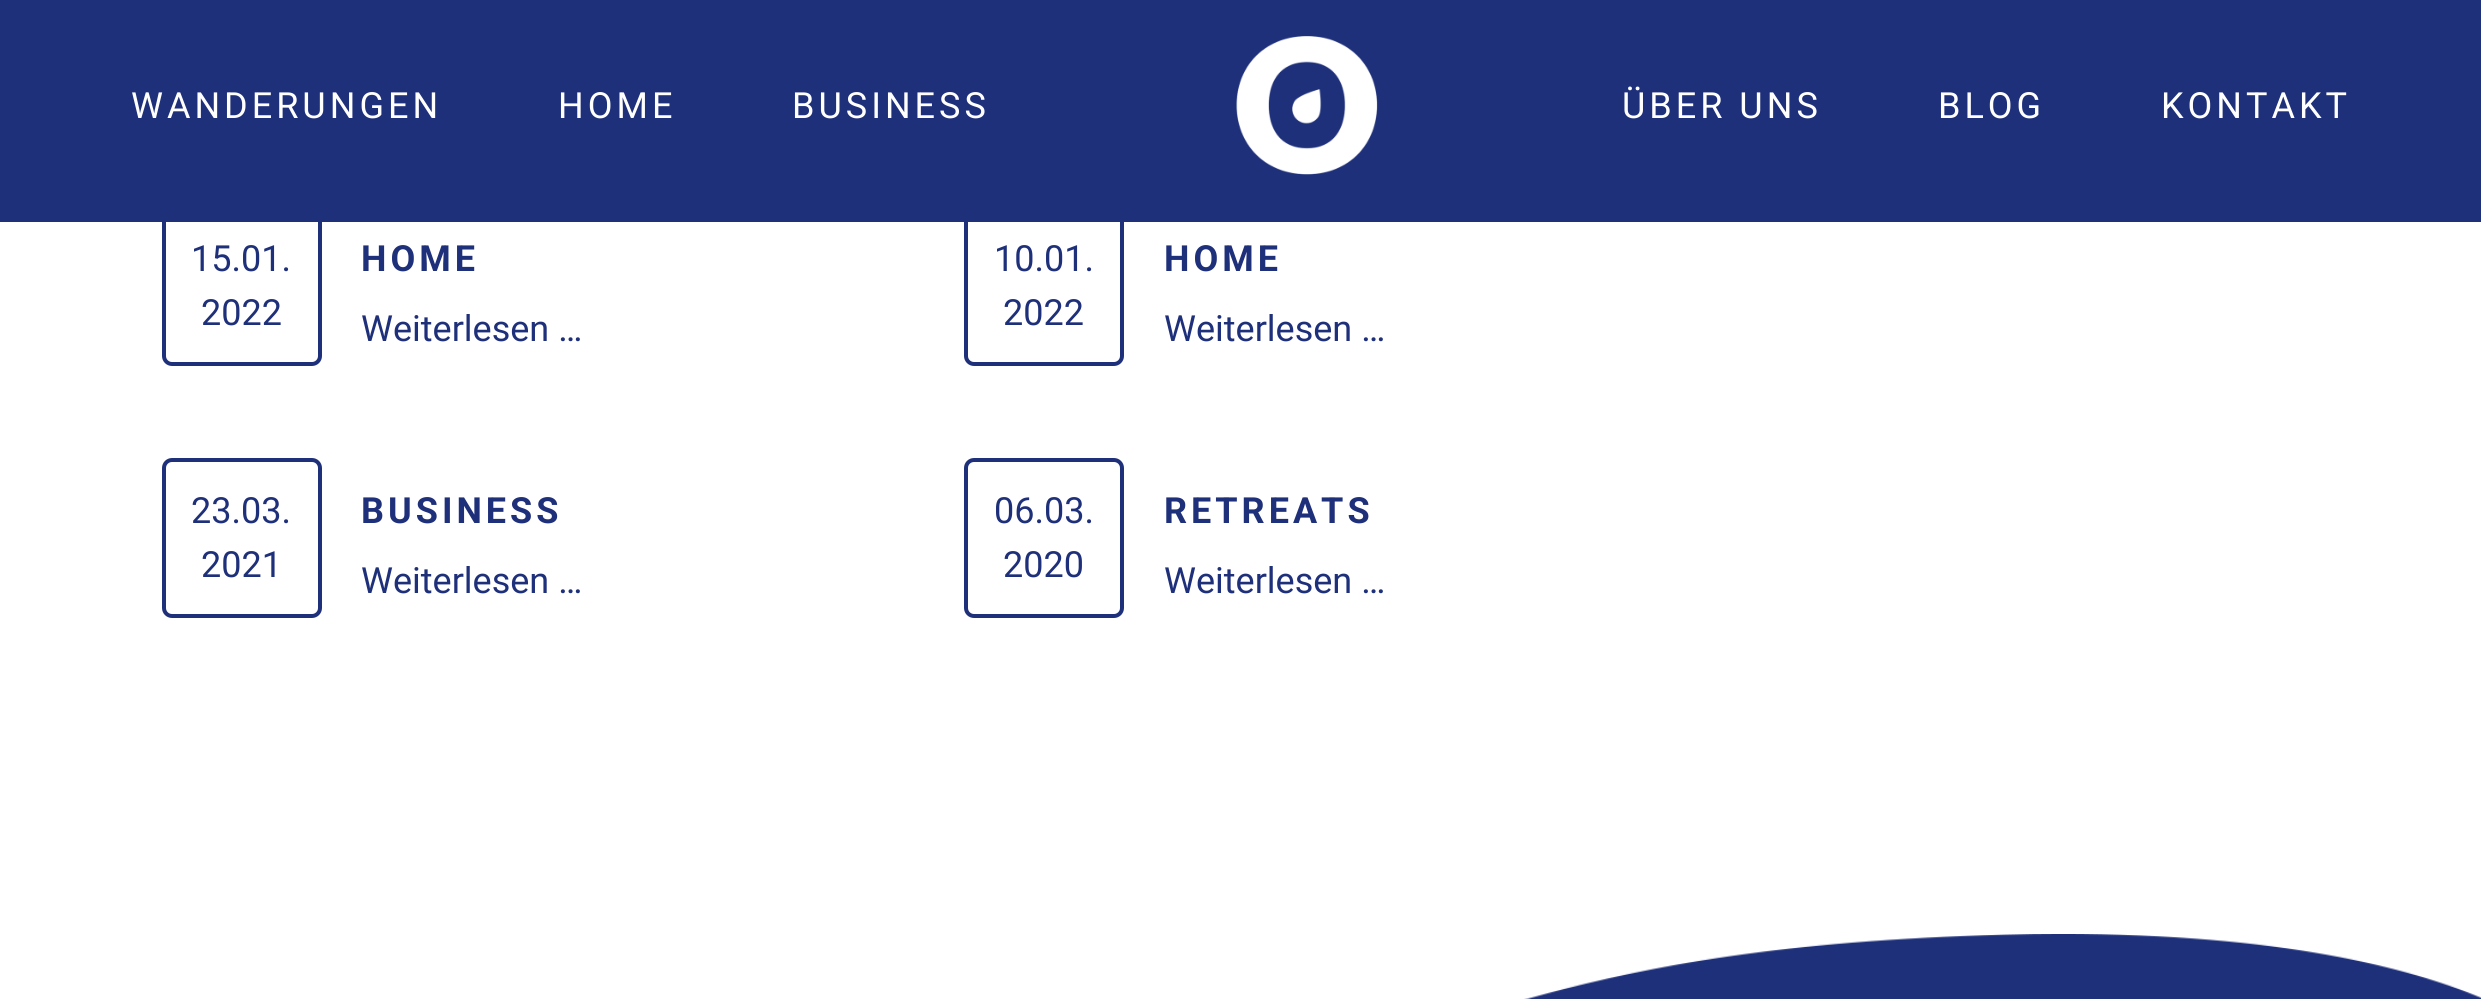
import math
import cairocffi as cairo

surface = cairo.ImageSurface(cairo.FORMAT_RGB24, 2481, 999)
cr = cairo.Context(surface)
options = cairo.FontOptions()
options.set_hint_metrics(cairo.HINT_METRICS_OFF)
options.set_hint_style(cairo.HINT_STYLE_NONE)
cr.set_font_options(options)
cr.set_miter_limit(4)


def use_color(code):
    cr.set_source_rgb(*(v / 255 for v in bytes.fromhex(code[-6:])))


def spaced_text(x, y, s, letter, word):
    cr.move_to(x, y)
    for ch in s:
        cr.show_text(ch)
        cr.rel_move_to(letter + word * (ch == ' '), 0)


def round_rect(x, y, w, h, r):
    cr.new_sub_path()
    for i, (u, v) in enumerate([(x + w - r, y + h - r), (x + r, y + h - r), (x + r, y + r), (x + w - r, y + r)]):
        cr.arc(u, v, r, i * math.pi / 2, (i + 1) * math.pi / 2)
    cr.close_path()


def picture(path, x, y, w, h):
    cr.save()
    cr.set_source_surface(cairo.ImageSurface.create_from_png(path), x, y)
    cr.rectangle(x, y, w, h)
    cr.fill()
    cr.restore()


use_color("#ffffff")
cr.paint()
round_rect(164, 208, 156, 156, 8)
use_color("#1f307a")
cr.set_line_width(4)
cr.stroke()
round_rect(966, 208, 156, 156, 8)
cr.stroke()
cr.rectangle(0, 0, 2481, 222)
cr.fill()
cr.select_font_face("Roboto")
cr.set_font_size(36)
use_color("#ffffff")
spaced_text(131, 118, "WANDERUNGEN", 4, 0)
spaced_text(558, 118, "HOME", 4, 0)
spaced_text(792, 118, "BUSINESS", 4, 0)
picture("img1.png", 1236, 36, 142, 139)
spaced_text(1622, 118, "ÜBER UNS", 4, 0)
spaced_text(1938, 118, "BLOG", 4, 0)
spaced_text(2161, 118, "KONTAKT", 4, 0)
use_color("#1f307a")
cr.move_to(191, 271)
cr.show_text("15.01.")
cr.move_to(201, 325)
cr.show_text("2022")
cr.select_font_face("Roboto", cairo.FONT_SLANT_NORMAL, cairo.FONT_WEIGHT_BOLD)
spaced_text(361, 271, "HOME", 4, 0)
cr.select_font_face("Roboto")
cr.move_to(361, 341)
cr.show_text("Weiterlesen …")
cr.move_to(994, 271)
cr.show_text("10.01.")
cr.move_to(1003, 325)
cr.show_text("2022")
cr.select_font_face("Roboto", cairo.FONT_SLANT_NORMAL, cairo.FONT_WEIGHT_BOLD)
spaced_text(1164, 271, "HOME", 4, 0)
cr.select_font_face("Roboto")
cr.move_to(1164, 341)
cr.show_text("Weiterlesen …")
round_rect(164, 460, 156, 156, 8)
cr.stroke()
cr.move_to(191, 523)
cr.show_text("23.03.")
cr.move_to(201, 577)
cr.show_text("2021")
cr.select_font_face("Roboto", cairo.FONT_SLANT_NORMAL, cairo.FONT_WEIGHT_BOLD)
spaced_text(361, 523, "BUSINESS", 4, 0)
cr.select_font_face("Roboto")
cr.move_to(361, 593)
cr.show_text("Weiterlesen …")
round_rect(966, 460, 156, 156, 8)
cr.stroke()
cr.move_to(994, 523)
cr.show_text("06.03.")
cr.move_to(1003, 577)
cr.show_text("2020")
cr.select_font_face("Roboto", cairo.FONT_SLANT_NORMAL, cairo.FONT_WEIGHT_BOLD)
spaced_text(1164, 523, "RETREATS", 4, 0)
cr.select_font_face("Roboto")
cr.move_to(1164, 593)
cr.show_text("Weiterlesen …")
picture("img2.png", 1524, 934, 957, 65)
surface.write_to_png("result.png")
